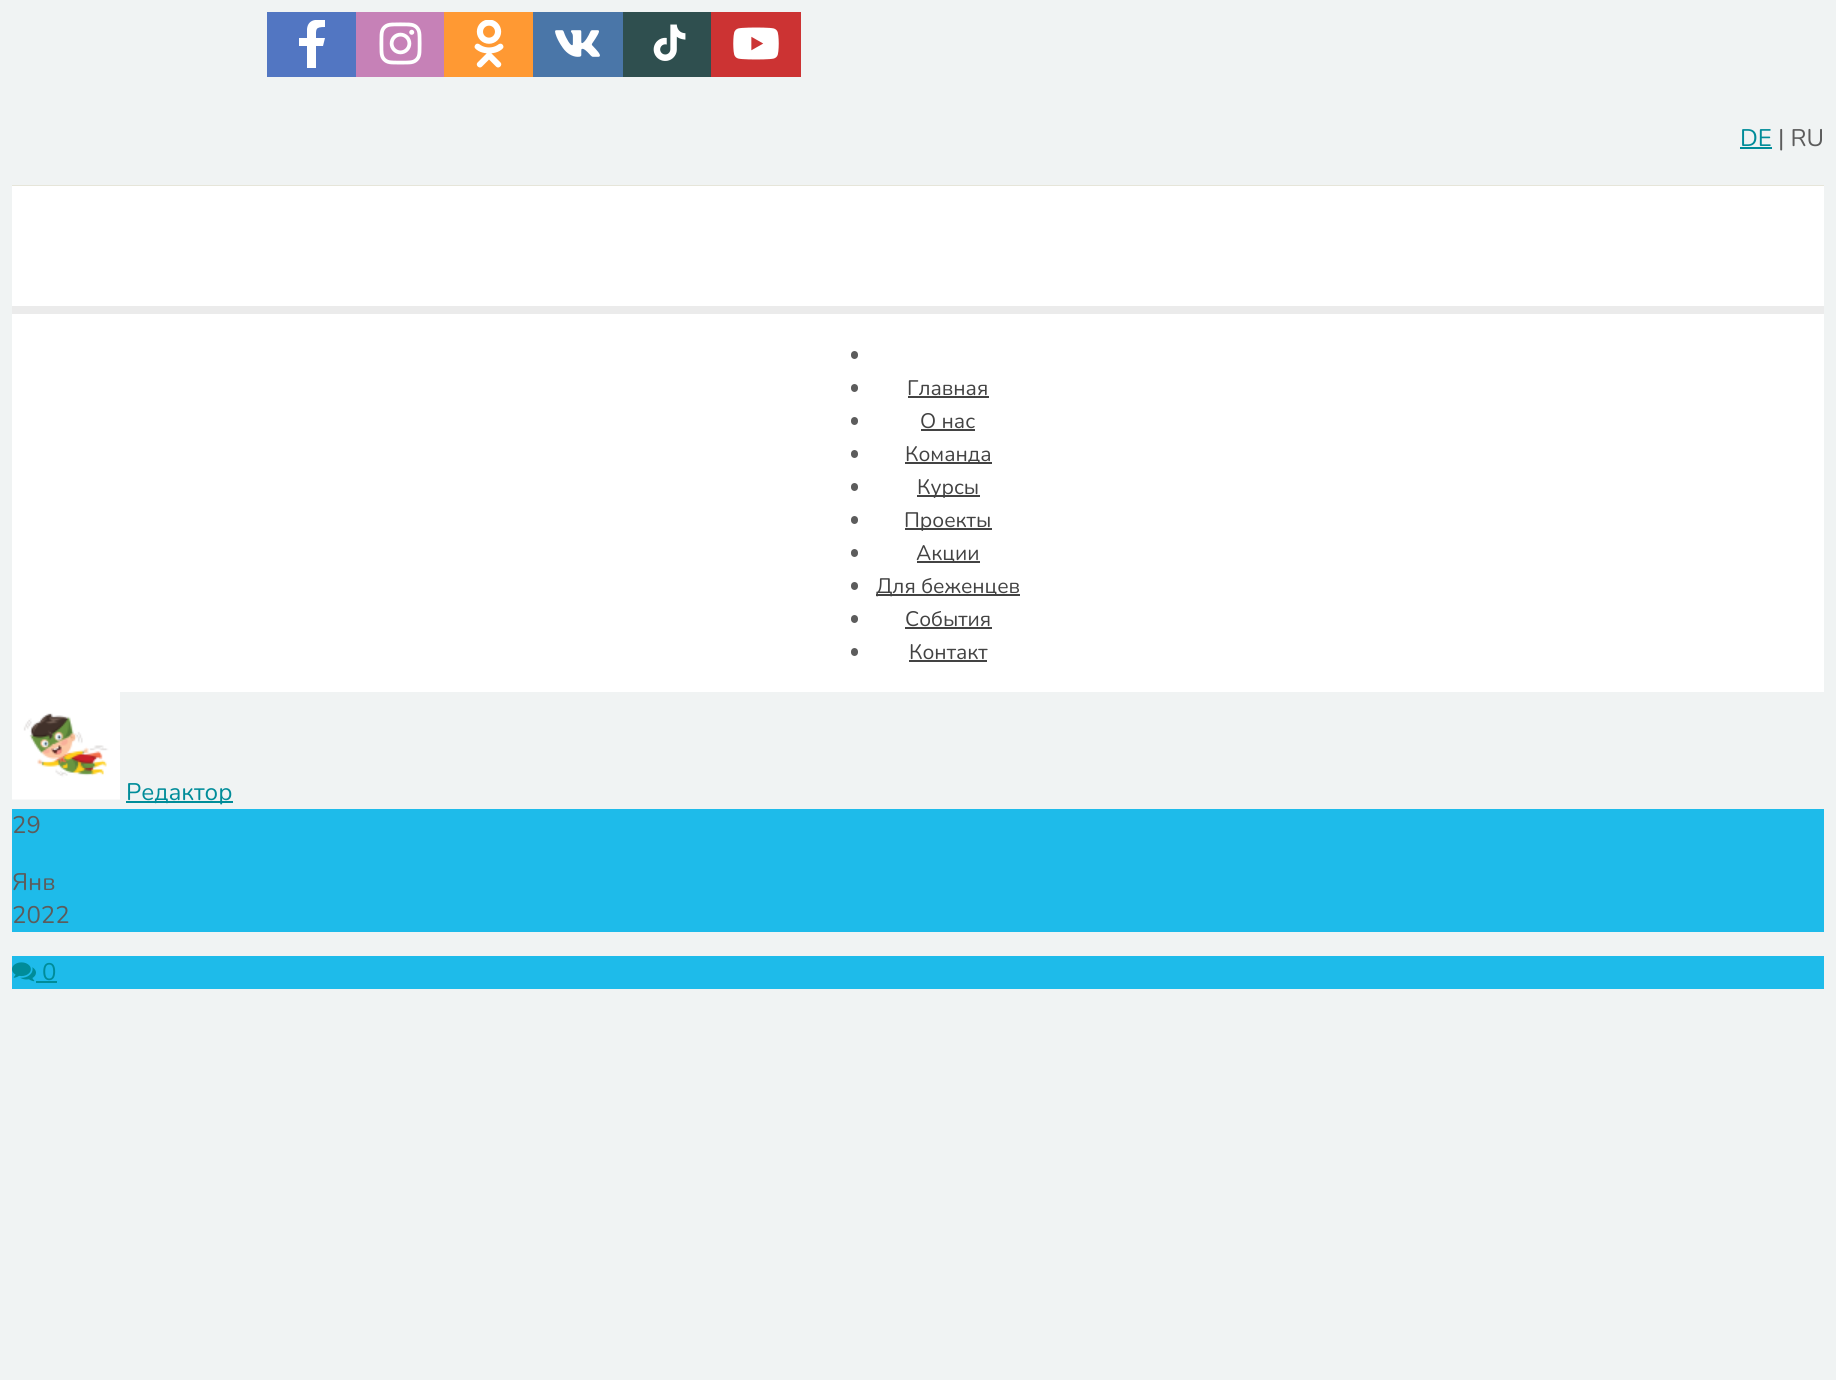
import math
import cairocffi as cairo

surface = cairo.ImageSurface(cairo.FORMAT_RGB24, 1836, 1380)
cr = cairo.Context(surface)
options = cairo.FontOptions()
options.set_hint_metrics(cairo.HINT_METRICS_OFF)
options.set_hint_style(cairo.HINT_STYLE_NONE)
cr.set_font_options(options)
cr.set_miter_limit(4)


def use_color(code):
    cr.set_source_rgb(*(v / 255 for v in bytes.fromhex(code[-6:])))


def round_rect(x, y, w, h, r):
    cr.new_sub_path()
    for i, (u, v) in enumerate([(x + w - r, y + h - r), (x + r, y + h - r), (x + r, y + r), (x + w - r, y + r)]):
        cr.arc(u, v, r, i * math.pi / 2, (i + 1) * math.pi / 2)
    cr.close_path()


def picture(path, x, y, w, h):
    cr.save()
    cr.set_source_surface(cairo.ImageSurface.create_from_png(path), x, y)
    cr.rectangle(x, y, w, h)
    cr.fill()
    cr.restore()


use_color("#f0f3f3")
cr.paint()
use_color("#e6e5d9")
cr.rectangle(12, 185, 1812, 1)
cr.fill()
use_color("#5276c2")
cr.rectangle(267, 12, 89, 65)
cr.fill()
cr.save()
cr.rectangle(288, 20, 48, 48)
cr.clip()
use_color("#ffffff")
cr.new_path()
cr.move_to(323, 46)
cr.line_to(325, 38)
cr.line_to(316, 38)
cr.curve_to(316, 29, 315, 27, 325, 27)
cr.line_to(325, 20)
cr.curve_to(317, 19, 308, 19, 307, 29)
cr.line_to(307, 38)
cr.line_to(299, 38)
cr.line_to(299, 46)
cr.line_to(307, 46)
cr.line_to(307, 68)
cr.line_to(316, 68)
cr.line_to(316, 46)
cr.close_path()
cr.fill()
cr.restore()
use_color("#c681b7")
cr.rectangle(356, 12, 88, 65)
cr.fill()
picture("img1.png", 379, 22, 43, 43)
use_color("#ff9933")
cr.rectangle(444, 12, 89, 65)
cr.fill()
picture("img2.png", 474, 20, 30, 48)
use_color("#4a76a8")
cr.rectangle(533, 12, 90, 65)
cr.fill()
picture("img3.png", 555, 30, 45, 27)
use_color("#2f4f4f")
cr.rectangle(623, 12, 88, 65)
cr.fill()
picture("img4.png", 653, 24, 33, 37)
use_color("#cc3333")
cr.rectangle(711, 12, 90, 65)
cr.fill()
picture("img5.png", 733, 27, 46, 33)
cr.select_font_face("Nunito")
cr.set_font_size(24)
use_color("#008c99")
cr.move_to(1740, 146)
cr.show_text("DE")
cr.rectangle(1740, 147, 32, 2)
cr.fill()
use_color("#5c5c5c")
cr.move_to(1778, 146)
cr.show_text("| RU")
use_color("#ffffff")
cr.rectangle(12, 186, 1812, 120)
cr.fill()
cr.rectangle(12, 314, 1812, 378)
cr.fill()
use_color("#ebebeb")
cr.rectangle(12, 306, 1812, 8)
cr.fill()
use_color("#5c5c5c")
round_rect(851, 351, 7, 8, 3.5)
cr.fill()
round_rect(851, 384, 7, 8, 3.5)
cr.fill()
cr.set_font_size(21)
use_color("#434343")
cr.move_to(907, 395)
cr.show_text("Главная")
cr.rectangle(908, 396, 81, 2)
cr.fill()
use_color("#5c5c5c")
round_rect(851, 417, 7, 8, 3.5)
cr.fill()
use_color("#434343")
cr.move_to(920, 428)
cr.show_text("О нас")
cr.rectangle(921, 429, 54, 2)
cr.fill()
use_color("#5c5c5c")
round_rect(851, 450, 7, 8, 3.5)
cr.fill()
use_color("#434343")
cr.rectangle(905, 462, 87, 2)
cr.fill()
cr.move_to(905, 461)
cr.show_text("Команда")
use_color("#5c5c5c")
round_rect(851, 483, 7, 8, 3.5)
cr.fill()
use_color("#434343")
cr.rectangle(917, 495, 63, 2)
cr.fill()
cr.move_to(917, 494)
cr.show_text("Курсы")
use_color("#5c5c5c")
round_rect(851, 516, 7, 8, 3.5)
cr.fill()
use_color("#434343")
cr.rectangle(905, 528, 87, 2)
cr.fill()
cr.move_to(904, 527)
cr.show_text("Проекты")
use_color("#5c5c5c")
round_rect(851, 549, 7, 8, 3.5)
cr.fill()
use_color("#434343")
cr.rectangle(917, 561, 63, 2)
cr.fill()
cr.move_to(916, 560)
cr.show_text("Акции")
use_color("#5c5c5c")
round_rect(851, 582, 7, 8, 3.5)
cr.fill()
use_color("#434343")
cr.rectangle(876, 594, 144, 2)
cr.fill()
cr.move_to(876, 593)
cr.show_text("Для беженцев")
use_color("#5c5c5c")
round_rect(851, 615, 7, 8, 3.5)
cr.fill()
use_color("#434343")
cr.move_to(905, 626)
cr.show_text("События")
cr.rectangle(905, 627, 87, 2)
cr.fill()
use_color("#5c5c5c")
round_rect(851, 648, 7, 8, 3.5)
cr.fill()
use_color("#434343")
cr.move_to(909, 659)
cr.show_text("Контакт")
cr.rectangle(909, 660, 78, 2)
cr.fill()
picture("img6.png", 12, 692, 108, 108)
use_color("#008c99")
cr.rectangle(126, 801, 107, 2)
cr.fill()
cr.set_font_size(24)
cr.move_to(126, 800)
cr.show_text("Редактор")
use_color("#1ebbea")
cr.rectangle(12, 809, 1812, 123)
cr.fill()
use_color("#5c5c5c")
cr.move_to(12, 833)
cr.show_text("29")
cr.move_to(12, 890)
cr.show_text("Янв")
cr.move_to(12, 923)
cr.show_text("2022")
use_color("#1ebbea")
cr.rectangle(12, 956, 1812, 33)
cr.fill()
picture("img7.png", 12, 962, 24, 20)
use_color("#008c99")
cr.move_to(42, 980)
cr.show_text("0")
cr.rectangle(36, 981, 21, 2)
cr.fill()
surface.write_to_png("result.png")
